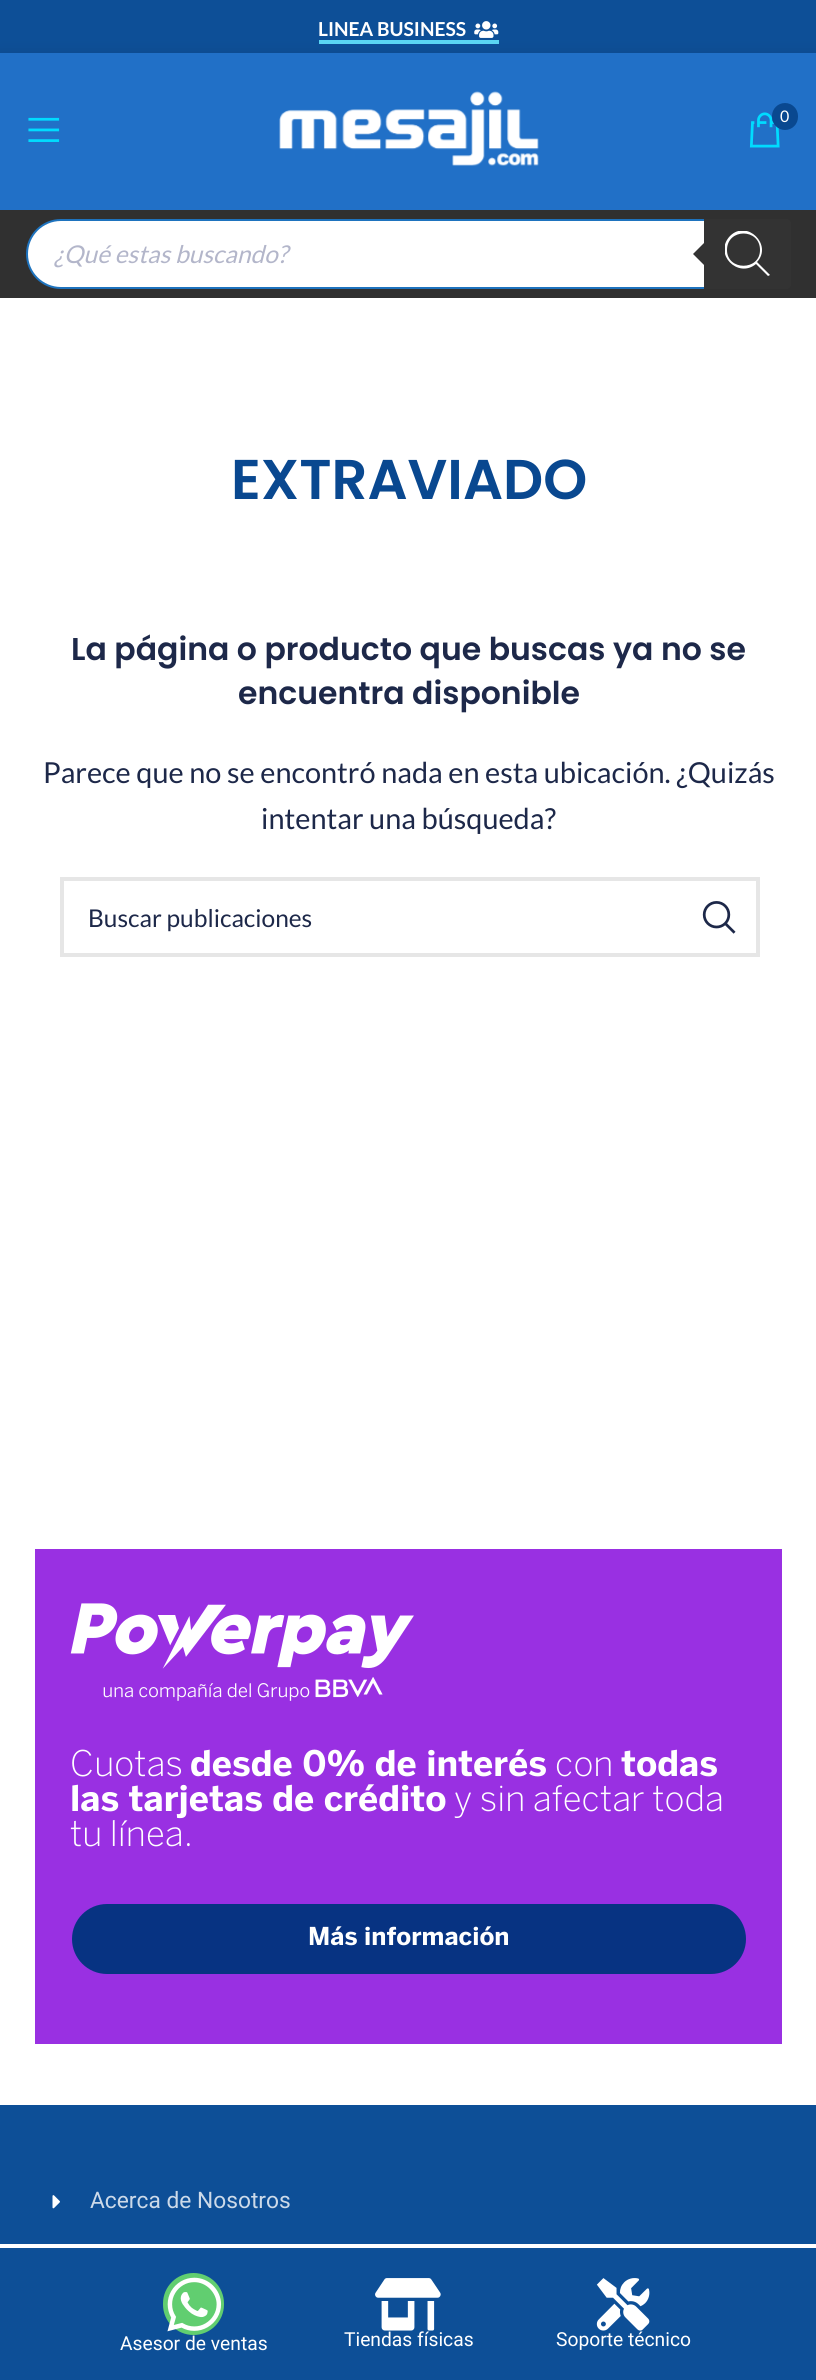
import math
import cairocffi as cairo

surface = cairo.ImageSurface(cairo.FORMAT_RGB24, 816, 2380)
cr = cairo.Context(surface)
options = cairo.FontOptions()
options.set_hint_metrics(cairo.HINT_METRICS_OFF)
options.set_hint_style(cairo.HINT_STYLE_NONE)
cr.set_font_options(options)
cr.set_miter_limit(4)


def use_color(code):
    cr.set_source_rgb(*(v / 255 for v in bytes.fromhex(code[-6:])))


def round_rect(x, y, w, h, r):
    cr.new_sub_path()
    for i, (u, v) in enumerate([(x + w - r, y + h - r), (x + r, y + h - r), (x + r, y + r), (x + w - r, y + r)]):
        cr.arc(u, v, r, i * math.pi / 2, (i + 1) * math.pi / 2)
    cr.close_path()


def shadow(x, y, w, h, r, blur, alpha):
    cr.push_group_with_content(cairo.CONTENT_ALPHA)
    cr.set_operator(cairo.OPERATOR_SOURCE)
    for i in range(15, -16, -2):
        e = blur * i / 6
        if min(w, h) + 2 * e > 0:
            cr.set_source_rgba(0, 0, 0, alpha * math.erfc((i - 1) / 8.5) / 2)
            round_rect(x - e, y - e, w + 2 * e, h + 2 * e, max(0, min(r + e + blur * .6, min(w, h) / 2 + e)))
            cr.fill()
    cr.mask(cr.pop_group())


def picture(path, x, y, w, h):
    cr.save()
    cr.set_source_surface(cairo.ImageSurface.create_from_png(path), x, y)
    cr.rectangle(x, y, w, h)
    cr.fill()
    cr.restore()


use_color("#ffffff")
cr.paint()
use_color("#0d4f97")
cr.rectangle(0, 0, 816, 53)
cr.fill()
use_color("#000000")
shadow(0, 54, 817, 158, 0, 7, 0.1)
use_color("#5ad5f3")
cr.rectangle(319, 40, 180, 4)
cr.fill()
cr.select_font_face("Lato", cairo.FONT_SLANT_NORMAL, cairo.FONT_WEIGHT_BOLD)
cr.set_font_size(19.25)
use_color("#ffffff")
cr.move_to(318, 36)
cr.show_text("LINEA BUSINESS")
picture("img1.png", 474, 21, 25, 17)
use_color("#2170c7")
cr.rectangle(0, 53, 816, 157)
cr.fill()
picture("img2.png", 28, 117, 32, 25)
picture("img3.png", 279, 91, 260, 75)
picture("img4.png", 749, 112, 31, 36)
use_color("#094890")
round_rect(772, 103, 26, 27, 13)
cr.fill()
cr.select_font_face("Lato")
cr.set_font_size(16)
use_color("#ffffff")
cr.move_to(780, 122)
cr.show_text("0")
use_color("#303030")
cr.rectangle(0, 210, 816, 88)
cr.fill()
use_color("#ffffff")
round_rect(27, 220, 763, 68, 34)
cr.fill_preserve()
use_color("#1e73be")
cr.stroke()
cr.select_font_face("Lato", cairo.FONT_SLANT_ITALIC)
cr.set_font_size(24.5)
use_color("#b3b6ca")
cr.move_to(54, 263)
cr.show_text("¿Qué estas buscando?")
use_color("#333333")
cr.new_path()
cr.move_to(704, 219)
cr.line_to(787, 219)
cr.curve_to(789, 219, 791, 221, 791, 223)
cr.line_to(791, 285)
cr.curve_to(791, 287, 789, 289, 787, 289)
cr.line_to(704, 289)
cr.close_path()
cr.fill()
cr.new_path()
cr.move_to(707, 240)
cr.line_to(707, 268)
cr.line_to(693, 254)
cr.close_path()
cr.fill()
cr.save()
cr.rectangle(725, 231, 45, 46)
cr.clip()
use_color("#ffffff")
cr.new_path()
cr.move_to(770, 275)
cr.line_to(757, 262)
cr.curve_to(773, 245, 747, 219, 730, 236)
cr.curve_to(713, 254, 738, 279, 756, 264)
cr.line_to(768, 276)
cr.close_path()
cr.move_to(727, 250)
cr.curve_to(727, 228, 760, 228, 760, 250)
cr.curve_to(760, 271, 727, 271, 727, 250)
cr.close_path()
cr.fill()
cr.restore()
cr.select_font_face("Poppins SemiBold")
cr.set_font_size(56)
use_color("#094890")
cr.move_to(231, 499)
cr.show_text("EXTRAVIADO")
cr.set_font_size(31.5)
use_color("#1d2849")
cr.move_to(71, 660)
cr.show_text("La página o producto que buscas ya no se")
cr.move_to(238, 704)
cr.show_text("encuentra disponible")
cr.select_font_face("Lato")
cr.set_font_size(28.9)
cr.move_to(43, 783)
cr.show_text("Parece que no se encontró nada en esta ubicación. ¿Quizás")
cr.move_to(261, 829)
cr.show_text("intentar una búsqueda?")
cr.rectangle(62, 879, 696, 76)
use_color("#e6e6e6")
cr.set_line_width(4)
cr.stroke()
cr.set_font_size(24.5)
use_color("#1d2849")
cr.move_to(88, 927)
cr.show_text("Buscar publicaciones")
picture("img5.png", 702, 901, 34, 33)
use_color("#9930e2")
cr.rectangle(35, 1549, 747, 495)
cr.fill()
picture("img6.png", 70, 1603, 344, 98)
cr.select_font_face("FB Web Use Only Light")
cr.set_font_size(35)
use_color("#ffffff")
cr.move_to(70, 1776)
cr.show_text("Cuotas")
cr.select_font_face("FB Web Use Only", cairo.FONT_SLANT_NORMAL, cairo.FONT_WEIGHT_BOLD)
cr.move_to(190, 1776)
cr.show_text("desde 0% de interés")
cr.select_font_face("FB Web Use Only Light")
cr.move_to(555, 1776)
cr.show_text("con")
cr.select_font_face("FB Web Use Only", cairo.FONT_SLANT_NORMAL, cairo.FONT_WEIGHT_BOLD)
cr.move_to(621, 1776)
cr.show_text("todas")
cr.move_to(70, 1811)
cr.show_text("las tarjetas de crédito")
cr.select_font_face("FB Web Use Only Light")
cr.move_to(454, 1811)
cr.show_text("y sin afectar toda")
cr.move_to(70, 1846)
cr.show_text("tu línea.")
use_color("#073382")
round_rect(72, 1904, 674, 70, 35)
cr.fill()
cr.select_font_face("FB Web Use Only", cairo.FONT_SLANT_NORMAL, cairo.FONT_WEIGHT_BOLD)
cr.set_font_size(24.5)
use_color("#ffffff")
cr.move_to(308, 1945)
cr.show_text("Más información")
use_color("#0d4f97")
cr.rectangle(0, 2105, 816, 139)
cr.fill()
picture("img7.png", 52, 2195, 8, 14)
cr.select_font_face("Roboto")
cr.set_font_size(22.75)
use_color("#ccdae9")
cr.move_to(90, 2208)
cr.show_text("Acerca de Nosotros")
use_color("#0d4f97")
cr.rectangle(0, 2248, 816, 132)
cr.fill()
use_color("#61ce70")
round_rect(163, 2273, 61, 62, 30.5)
cr.fill()
picture("img8.png", 167, 2277, 55, 55)
cr.set_font_size(19.25)
use_color("#ffffff")
cr.move_to(120, 2350)
cr.show_text("Asesor de ventas")
picture("img9.png", 375, 2278, 66, 53)
cr.move_to(344, 2346)
cr.show_text("Tiendas físicas")
picture("img10.png", 596, 2278, 54, 53)
cr.move_to(556, 2346)
cr.show_text("Soporte técnico")
surface.write_to_png("result.png")
